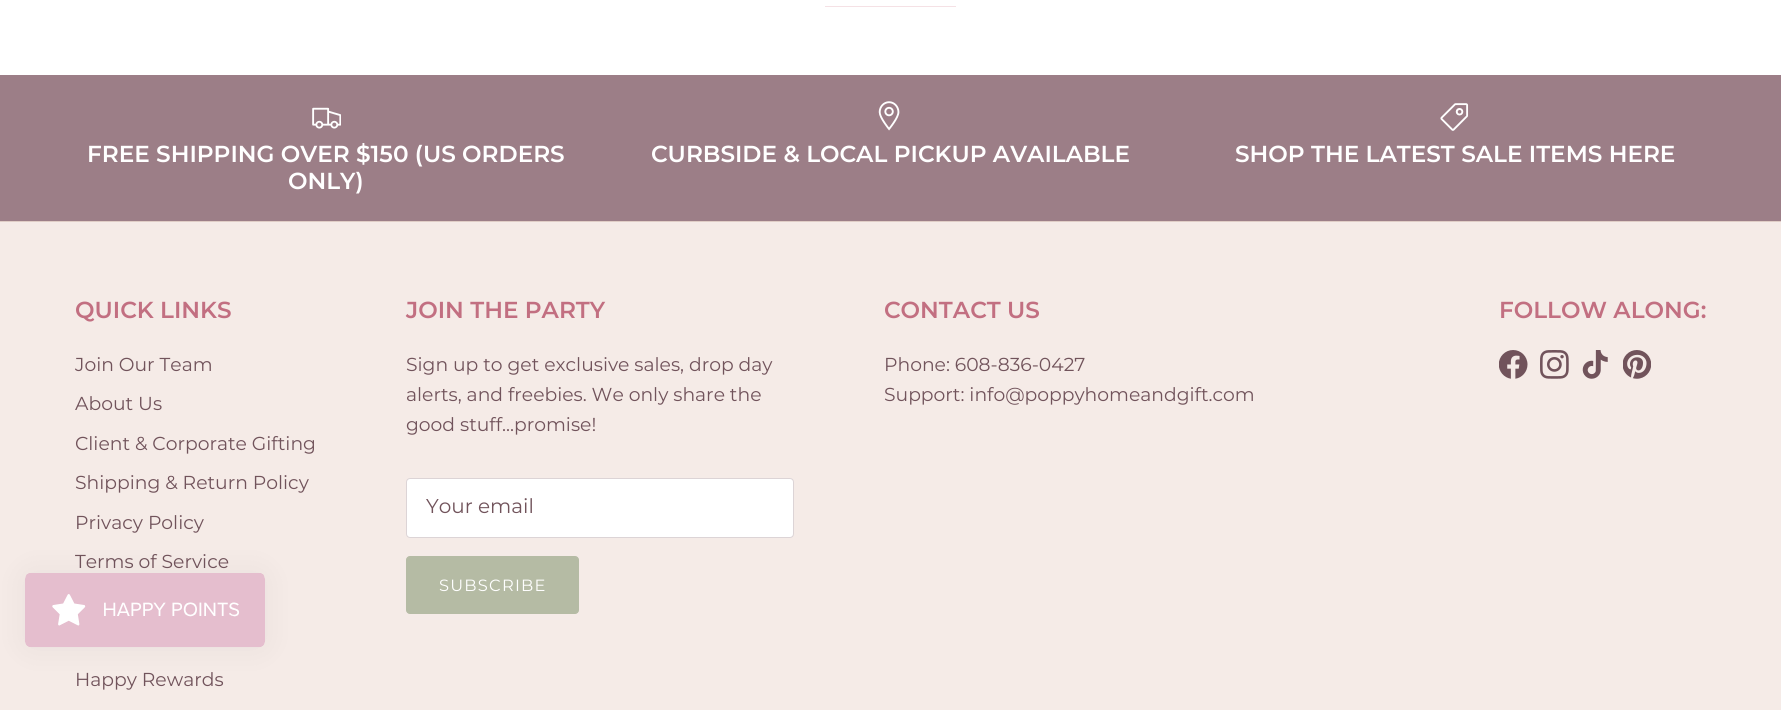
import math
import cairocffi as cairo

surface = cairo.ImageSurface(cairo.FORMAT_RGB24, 1781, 710)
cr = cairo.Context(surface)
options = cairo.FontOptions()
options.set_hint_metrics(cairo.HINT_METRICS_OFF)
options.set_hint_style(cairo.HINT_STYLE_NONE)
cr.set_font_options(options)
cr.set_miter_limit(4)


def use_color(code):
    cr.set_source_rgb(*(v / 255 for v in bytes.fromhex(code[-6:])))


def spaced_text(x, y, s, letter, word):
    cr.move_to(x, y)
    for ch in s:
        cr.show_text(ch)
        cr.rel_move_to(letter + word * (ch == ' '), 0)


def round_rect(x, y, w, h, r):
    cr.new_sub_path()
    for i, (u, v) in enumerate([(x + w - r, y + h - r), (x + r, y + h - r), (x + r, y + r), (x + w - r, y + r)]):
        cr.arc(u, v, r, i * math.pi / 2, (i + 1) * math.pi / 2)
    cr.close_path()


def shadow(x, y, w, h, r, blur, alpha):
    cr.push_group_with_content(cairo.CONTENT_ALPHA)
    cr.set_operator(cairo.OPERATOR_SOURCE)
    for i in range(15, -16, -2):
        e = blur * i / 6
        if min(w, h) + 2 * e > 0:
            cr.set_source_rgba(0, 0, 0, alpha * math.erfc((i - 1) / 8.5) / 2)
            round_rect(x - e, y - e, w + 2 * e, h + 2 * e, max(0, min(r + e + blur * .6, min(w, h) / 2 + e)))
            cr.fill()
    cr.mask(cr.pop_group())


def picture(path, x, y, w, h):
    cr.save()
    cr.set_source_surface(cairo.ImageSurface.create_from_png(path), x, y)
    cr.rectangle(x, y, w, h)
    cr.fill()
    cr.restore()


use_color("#ffffff")
cr.paint()
use_color("#f5e1e5")
cr.rectangle(825, 6, 131, 1)
cr.fill()
use_color("#9c7e87")
cr.rectangle(0, 75, 1781, 146)
cr.fill()
picture("img1.png", 312, 107, 29, 22)
cr.select_font_face("Montserrat SemiBold")
cr.set_font_size(23.15)
use_color("#ffffff")
cr.move_to(87, 162)
cr.show_text("FREE SHIPPING OVER $150 (US ORDERS")
cr.move_to(288, 189)
cr.show_text("ONLY)")
picture("img2.png", 878, 101, 22, 30)
cr.move_to(651, 162)
cr.show_text("CURBSIDE & LOCAL PICKUP AVAILABLE")
picture("img3.png", 1440, 103, 29, 28)
cr.move_to(1235, 162)
cr.show_text("SHOP THE LATEST SALE ITEMS HERE")
use_color("#f5ebe7")
cr.rectangle(0, 222, 1781, 488)
cr.fill()
use_color("#e0cdc6")
cr.rectangle(0, 221, 1781, 1)
cr.fill()
use_color("#c26f81")
cr.move_to(75, 318)
cr.show_text("QUICK LINKS")
cr.select_font_face("Montserrat")
cr.set_font_size(18.75)
use_color("#71535b")
cr.move_to(75, 371)
cr.show_text("Join Our Team")
cr.move_to(75, 410)
cr.show_text("About Us")
cr.move_to(75, 450)
cr.show_text("Client & Corporate Gifting")
cr.move_to(75, 489)
cr.show_text("Shipping & Return Policy")
cr.move_to(75, 529)
cr.show_text("Privacy Policy")
cr.move_to(75, 568)
cr.show_text("Terms of Service")
cr.move_to(75, 686)
cr.show_text("Happy Rewards")
cr.select_font_face("Montserrat SemiBold")
cr.set_font_size(23.15)
use_color("#c26f81")
cr.move_to(406, 318)
cr.show_text("JOIN THE PARTY")
cr.select_font_face("Montserrat")
cr.set_font_size(18.75)
use_color("#71535b")
cr.move_to(406, 371)
cr.show_text("Sign up to get exclusive sales, drop day")
cr.move_to(406, 401)
cr.show_text("alerts, and freebies. We only share the")
cr.move_to(406, 431)
cr.show_text("good stuff...promise!")
use_color("#ffffff")
round_rect(406.5, 478.5, 387, 59, 3.5)
cr.fill_preserve()
use_color("#dcd4d6")
cr.set_line_width(1)
cr.stroke()
cr.set_font_size(20)
use_color("#71535b")
cr.move_to(426, 513)
cr.show_text("Your email")
use_color("#b5bba4")
round_rect(406.5, 556.5, 172, 57, 3.5)
cr.fill_preserve()
cr.stroke()
cr.set_font_size(16.25)
use_color("#ffffff")
spaced_text(439, 591, "SUBSCRIBE", 1.25, 0)
cr.select_font_face("Montserrat SemiBold")
cr.set_font_size(23.15)
use_color("#c26f81")
cr.move_to(884, 318)
cr.show_text("CONTACT US")
cr.select_font_face("Montserrat")
cr.set_font_size(18.75)
use_color("#71535b")
cr.move_to(884, 371)
cr.show_text("Phone: 608-836-0427")
cr.move_to(884, 401)
cr.show_text("Support: info@poppyhomeandgift.com")
cr.select_font_face("Montserrat SemiBold")
cr.set_font_size(23.15)
use_color("#c26f81")
cr.move_to(1499, 318)
cr.show_text("FOLLOW ALONG:")
picture("img4.png", 1499, 350, 29, 29)
picture("img5.png", 1540, 350, 29, 29)
picture("img6.png", 1582, 350, 26, 29)
picture("img7.png", 1623, 350, 28, 29)
use_color("#000000")
shadow(25, 573, 240, 75, 6, 15.5, 0.05)
picture("img8.png", 25, 573, 240, 75)
surface.write_to_png("result.png")
